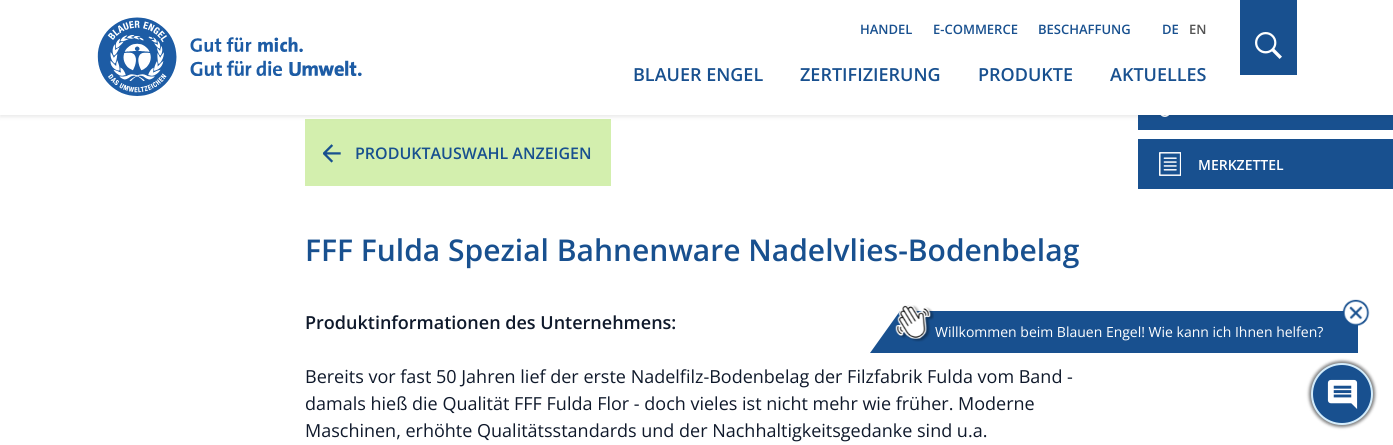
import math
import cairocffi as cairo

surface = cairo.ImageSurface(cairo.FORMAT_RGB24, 1393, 445)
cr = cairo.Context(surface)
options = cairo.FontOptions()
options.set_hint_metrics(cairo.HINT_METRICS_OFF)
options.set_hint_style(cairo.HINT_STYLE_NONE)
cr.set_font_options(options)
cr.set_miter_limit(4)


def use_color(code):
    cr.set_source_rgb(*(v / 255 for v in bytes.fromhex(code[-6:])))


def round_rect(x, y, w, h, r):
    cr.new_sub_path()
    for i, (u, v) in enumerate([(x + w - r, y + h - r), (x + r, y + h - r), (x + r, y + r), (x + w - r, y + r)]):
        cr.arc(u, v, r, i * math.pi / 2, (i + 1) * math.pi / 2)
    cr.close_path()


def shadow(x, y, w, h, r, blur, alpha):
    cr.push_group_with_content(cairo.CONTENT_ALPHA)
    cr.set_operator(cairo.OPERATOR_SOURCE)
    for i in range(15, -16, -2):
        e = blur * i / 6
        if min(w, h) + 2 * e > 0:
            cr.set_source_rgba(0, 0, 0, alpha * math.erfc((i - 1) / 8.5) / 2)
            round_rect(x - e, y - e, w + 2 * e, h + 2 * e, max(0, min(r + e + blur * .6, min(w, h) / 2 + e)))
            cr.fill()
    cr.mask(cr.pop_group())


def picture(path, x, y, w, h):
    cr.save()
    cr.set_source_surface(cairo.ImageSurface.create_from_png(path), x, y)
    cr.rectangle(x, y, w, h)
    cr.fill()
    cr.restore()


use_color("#ffffff")
cr.paint()
use_color("#d3efae")
cr.rectangle(305, 119, 306, 67)
cr.fill()
use_color("#18508f")
cr.rectangle(1138, 115, 255, 15)
cr.fill()
picture("img4.png", 1160, 115, 10, 2)
use_color("#000000")
shadow(0, 2, 1393, 115, 0, 2, 0.09)
use_color("#ffffff")
cr.rectangle(0, 0, 1393, 115)
cr.fill()
picture("img1.png", 97, 17, 265, 79)
cr.select_font_face("Open Sans SemiBold")
cr.set_font_size(13)
use_color("#18508f")
cr.move_to(860, 34)
cr.show_text("HANDEL")
cr.move_to(933, 34)
cr.show_text("E-COMMERCE")
cr.move_to(1038, 34)
cr.show_text("BESCHAFFUNG")
cr.move_to(1162, 34)
cr.show_text("DE")
use_color("#535353")
cr.move_to(1189, 34)
cr.show_text("EN")
cr.set_font_size(18)
use_color("#18508f")
cr.move_to(633, 81)
cr.show_text("BLAUER ENGEL")
cr.move_to(800, 81)
cr.show_text("ZERTIFIZIERUNG")
cr.move_to(978, 81)
cr.show_text("PRODUKTE")
cr.move_to(1110, 81)
cr.show_text("AKTUELLES")
cr.rectangle(1240, 0, 57, 75)
cr.fill()
picture("img2.png", 1255, 32, 27, 27)
picture("img3.png", 323, 144, 18, 19)
cr.set_font_size(16)
cr.move_to(355, 159)
cr.show_text("PRODUKTAUSWAHL ANZEIGEN")
cr.rectangle(1138, 139, 255, 50)
cr.fill()
picture("img5.png", 1159, 152, 22, 24)
cr.set_font_size(14)
use_color("#ffffff")
cr.move_to(1198, 170)
cr.show_text("MERKZETTEL")
cr.set_font_size(30)
use_color("#18508f")
cr.move_to(305, 261)
cr.show_text("FFF Fulda Spezial Bahnenware Nadelvlies-Bodenbelag")
cr.set_font_size(18)
use_color("#0f192b")
cr.move_to(305, 329)
cr.show_text("Produktinformationen des Unternehmens:")
cr.select_font_face("Open Sans")
cr.move_to(305, 383)
cr.show_text("Bereits vor fast 50 Jahren lief der erste Nadelfilz-Bodenbelag der Filzfabrik Fulda vom Band -")
cr.move_to(305, 410)
cr.show_text("damals hieß die Qualität FFF Fulda Flor - doch vieles ist nicht mehr wie früher. Moderne")
cr.move_to(305, 437)
cr.show_text("Maschinen, erhöhte Qualitätsstandards und der Nachhaltigkeitsgedanke sind u.a.")
use_color("#18508f")
cr.rectangle(900, 311, 458, 42)
cr.fill()
cr.new_path()
cr.move_to(870, 353)
cr.line_to(900, 311)
cr.line_to(900, 353)
cr.close_path()
cr.fill()
picture("img6.png", 895, 305, 39, 37)
cr.set_font_size(14)
use_color("#ffffff")
cr.move_to(935, 337)
cr.show_text("Willkommen beim Blauen Engel! Wie kann ich Ihnen helfen?")
picture("img7.png", 1342, 299, 28, 28)
use_color("#000000")
shadow(1309, 361, 66, 66, 33, 1.5, 0.5)
use_color("#18508f")
cr.arc(1342, 394, 30, 0, 2 * math.pi)
cr.fill_preserve()
use_color("#d4edfc")
cr.stroke()
picture("img8.png", 1327, 379, 31, 30)
surface.write_to_png("result.png")
